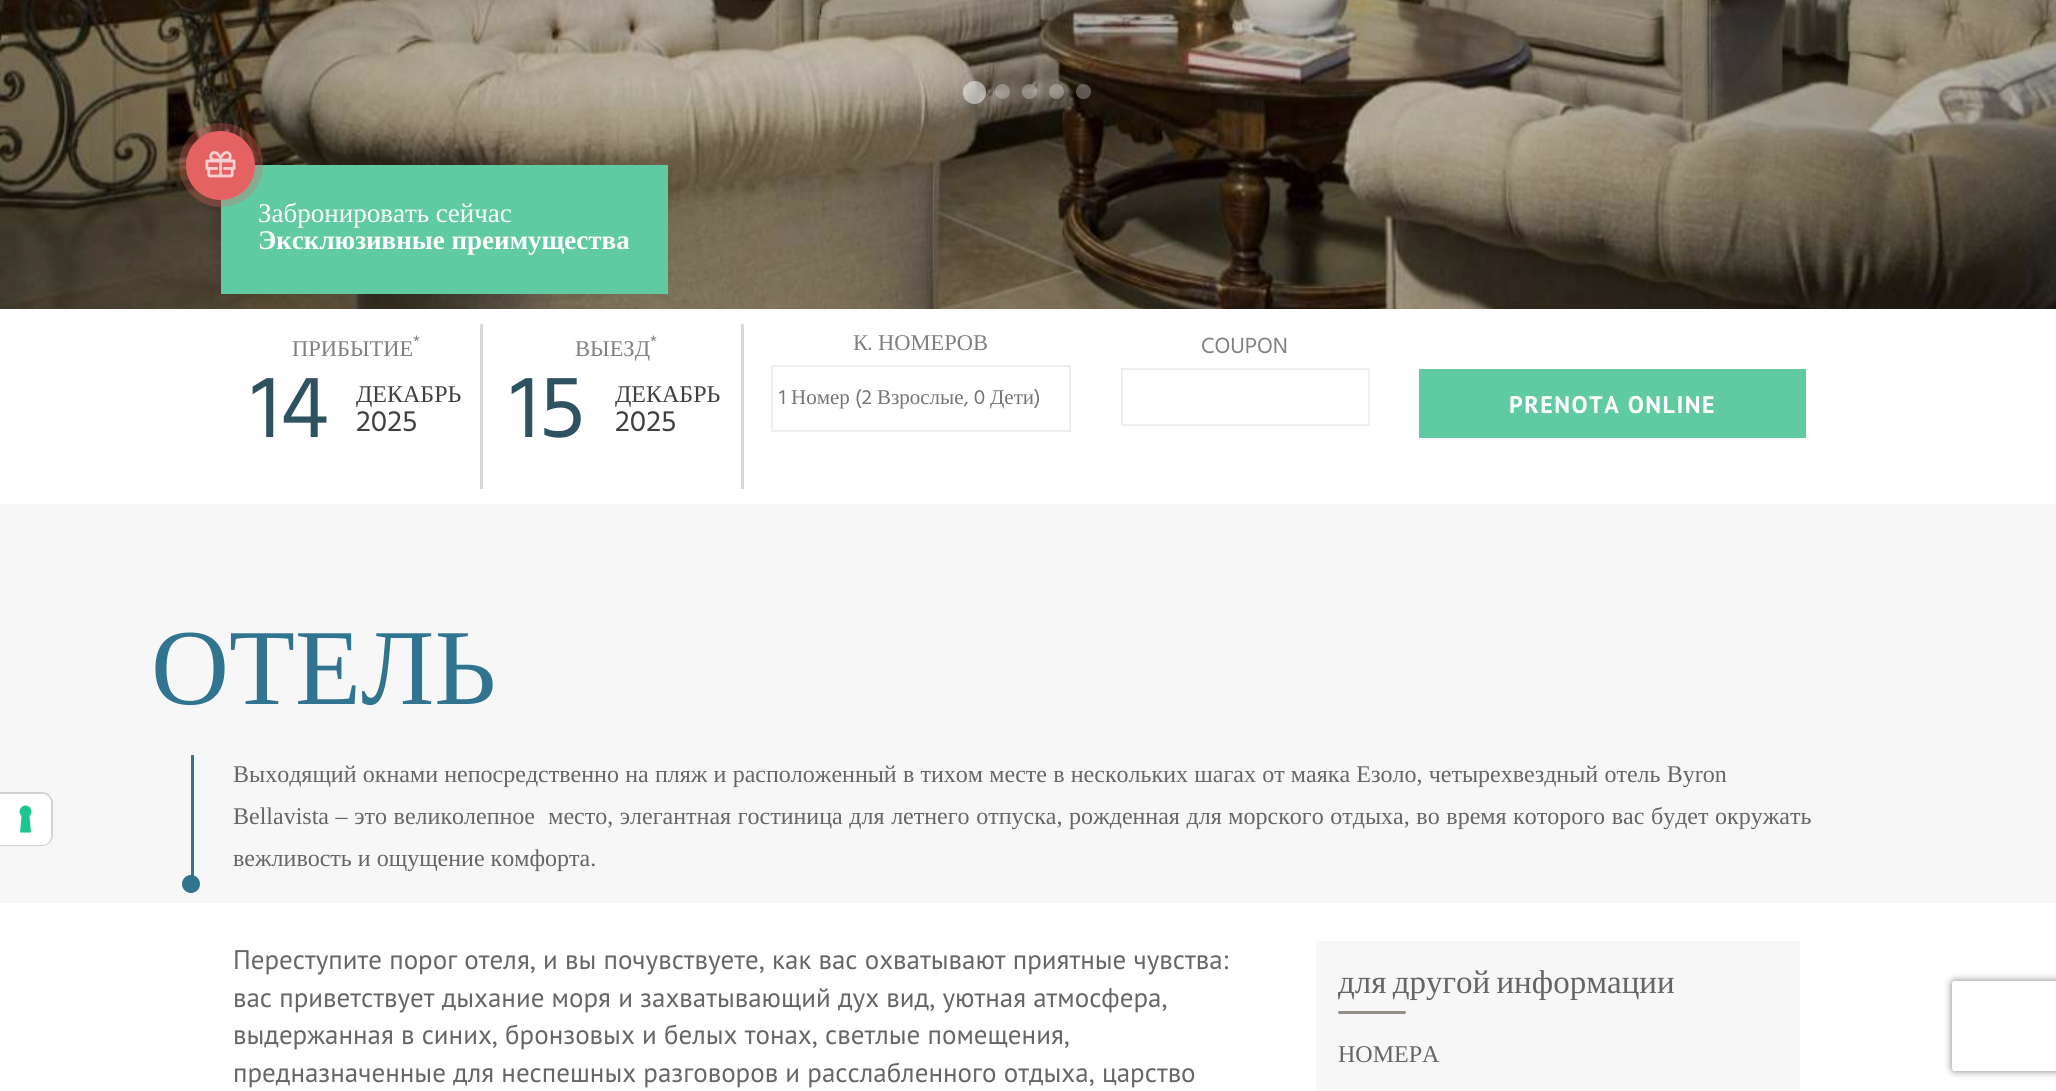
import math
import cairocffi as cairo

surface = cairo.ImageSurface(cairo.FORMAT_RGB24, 2056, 1091)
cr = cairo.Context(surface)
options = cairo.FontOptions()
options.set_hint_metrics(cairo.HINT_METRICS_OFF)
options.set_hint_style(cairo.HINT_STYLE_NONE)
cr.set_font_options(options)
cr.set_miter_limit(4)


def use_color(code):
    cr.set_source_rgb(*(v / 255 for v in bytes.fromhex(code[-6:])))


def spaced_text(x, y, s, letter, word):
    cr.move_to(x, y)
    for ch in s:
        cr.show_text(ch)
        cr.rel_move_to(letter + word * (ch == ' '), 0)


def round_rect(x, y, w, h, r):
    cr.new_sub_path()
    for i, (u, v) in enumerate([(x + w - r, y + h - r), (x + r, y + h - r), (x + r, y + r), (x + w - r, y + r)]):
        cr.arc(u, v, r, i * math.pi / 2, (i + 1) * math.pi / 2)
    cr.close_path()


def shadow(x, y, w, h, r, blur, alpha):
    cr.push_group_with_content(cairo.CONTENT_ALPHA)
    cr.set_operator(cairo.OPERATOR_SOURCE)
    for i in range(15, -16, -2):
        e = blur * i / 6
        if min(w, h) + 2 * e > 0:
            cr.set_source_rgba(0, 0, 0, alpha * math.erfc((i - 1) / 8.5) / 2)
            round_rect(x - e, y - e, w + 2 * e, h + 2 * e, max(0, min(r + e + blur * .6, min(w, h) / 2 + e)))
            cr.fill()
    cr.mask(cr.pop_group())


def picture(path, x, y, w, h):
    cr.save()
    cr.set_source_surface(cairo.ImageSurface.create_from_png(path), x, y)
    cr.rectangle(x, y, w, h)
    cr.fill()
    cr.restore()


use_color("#ffffff")
cr.paint()
use_color("#f7f7f7")
cr.rectangle(0, 504, 2056, 399)
cr.fill()
cr.new_path()
cr.move_to(0, 793)
cr.line_to(42, 793)
cr.curve_to(47.5, 793, 52, 797.5, 52, 803)
cr.line_to(52, 835)
cr.curve_to(52, 840.5, 47.5, 845, 42, 845)
cr.line_to(0, 845)
cr.close_path()
use_color("#d2d2d2")
cr.stroke()
use_color("#ffffff")
cr.new_path()
cr.move_to(0, 794)
cr.line_to(42, 794)
cr.curve_to(47, 794, 51, 798, 51, 803)
cr.line_to(51, 836)
cr.curve_to(51, 841, 47, 845, 42, 845)
cr.line_to(0, 845)
cr.close_path()
cr.fill()
use_color("#1cc691")
cr.set_fill_rule(cairo.FILL_RULE_EVEN_ODD)
cr.new_path()
cr.move_to(25.5, 805.5)
cr.curve_to(31, 805.5, 33.5, 812.5, 29.5, 816)
cr.line_to(31, 832.5)
cr.line_to(20, 832.5)
cr.line_to(21.5, 816)
cr.curve_to(17.5, 812.5, 20, 805.5, 25.5, 805.5)
cr.close_path()
cr.fill()
picture("img1.png", 0, 0, 2056, 309)
cr.set_source_rgba(1, 1, 1, 0.5)
cr.arc(974.5, 92.5, 11.5, 0, 2 * math.pi)
cr.fill()
cr.set_source_rgba(1, 1, 1, 0.28)
cr.arc(1002.5, 91.5, 7.5, 0, 2 * math.pi)
cr.fill()
cr.arc(1029.5, 91.5, 7.5, 0, 2 * math.pi)
cr.fill()
cr.arc(1056.5, 91.5, 7.5, 0, 2 * math.pi)
cr.fill()
cr.arc(1083.5, 91.5, 7.5, 0, 2 * math.pi)
cr.fill()
use_color("#60caa3")
cr.rectangle(221, 165, 447, 129)
cr.fill()
use_color("#e56263")
cr.arc(220.5, 165.5, 34.5, 0, 2 * math.pi)
cr.fill()
picture("img2.png", 205, 151, 31, 27)
cr.select_font_face("Liberation Serif")
cr.set_font_size(27)
use_color("#ffffff")
cr.move_to(258, 222)
cr.show_text("Забронировать сейчас")
cr.set_source_rgba(0.898, 0.384, 0.388, 0.3)
cr.new_path()
cr.arc(221, 165, 42, 0, 2 * math.pi)
cr.fill()
cr.select_font_face("Liberation Serif", cairo.FONT_SLANT_NORMAL, cairo.FONT_WEIGHT_BOLD)
use_color("#ffffff")
cr.move_to(258, 249)
cr.show_text("Эксклюзивные преимущества")
cr.select_font_face("Hind")
cr.set_font_size(17)
use_color("#808080")
cr.move_to(413, 347)
cr.show_text("*")
cr.select_font_face("Liberation Serif")
cr.set_font_size(22.5)
cr.move_to(292, 356)
cr.show_text("ПРИБЫТИЕ")
use_color("#d8d8d8")
cr.rectangle(480, 324, 3, 165)
cr.fill()
cr.select_font_face("Hind")
cr.set_font_size(90)
use_color("#2f5261")
cr.move_to(251, 437)
cr.show_text("14")
cr.select_font_face("Liberation Serif")
cr.set_font_size(24)
use_color("#404040")
cr.move_to(356, 402)
cr.show_text("ДЕКАБРЬ")
cr.select_font_face("Hind")
cr.set_font_size(30)
cr.move_to(356, 431)
cr.show_text("2025")
cr.set_font_size(17)
use_color("#808080")
cr.move_to(650, 347)
cr.show_text("*")
cr.select_font_face("Liberation Serif")
cr.set_font_size(22.5)
cr.move_to(575, 356)
cr.show_text("ВЫЕЗД")
use_color("#d8d8d8")
cr.rectangle(741, 324, 3, 165)
cr.fill()
cr.select_font_face("Hind")
cr.set_font_size(90)
use_color("#2f5261")
cr.move_to(510, 437)
cr.show_text("15")
cr.select_font_face("Liberation Serif")
cr.set_font_size(24)
use_color("#404040")
cr.move_to(615, 402)
cr.show_text("ДЕКАБРЬ")
cr.select_font_face("Hind")
cr.set_font_size(30)
cr.move_to(615, 431)
cr.show_text("2025")
cr.select_font_face("Liberation Serif")
cr.set_font_size(22.5)
use_color("#808080")
cr.move_to(853, 350)
cr.show_text("К")
cr.select_font_face("Hind")
cr.move_to(868, 350)
cr.show_text(".")
cr.select_font_face("Liberation Serif")
cr.move_to(878, 350)
cr.show_text("НОМЕРОВ")
cr.rectangle(772, 366, 298, 65)
use_color("#eeeeee")
cr.stroke()
cr.select_font_face("Hind")
cr.set_font_size(21)
use_color("#767676")
cr.move_to(779, 404)
cr.show_text("1")
cr.select_font_face("Liberation Serif")
cr.move_to(791, 404)
cr.show_text("Номер")
cr.select_font_face("Hind")
cr.move_to(855, 404)
cr.show_text("(2")
cr.select_font_face("Liberation Serif")
cr.move_to(877, 404)
cr.show_text("Взрослые")
cr.select_font_face("Hind")
cr.move_to(964, 404)
cr.show_text(", 0")
cr.select_font_face("Liberation Serif")
cr.move_to(990, 404)
cr.show_text("Дети")
cr.select_font_face("Hind")
cr.move_to(1034, 404)
cr.show_text(")")
cr.set_font_size(22.5)
use_color("#808080")
cr.move_to(1201, 353)
cr.show_text("COUPON")
cr.rectangle(1122, 369, 247, 56)
use_color("#eeeeee")
cr.stroke()
use_color("#60caa3")
cr.rectangle(1419, 369, 387, 69)
cr.fill()
cr.select_font_face("PT Sans", cairo.FONT_SLANT_NORMAL, cairo.FONT_WEIGHT_BOLD)
cr.set_font_size(24)
use_color("#ffffff")
spaced_text(1509, 413, "PRENOTA ONLINE", 1.5, 0)
cr.select_font_face("Liberation Serif")
cr.set_font_size(108)
use_color("#317490")
cr.move_to(151, 704)
cr.show_text("ОТЕЛЬ")
cr.rectangle(191, 755, 3, 129)
cr.fill()
cr.arc(191, 884, 9, 0, 2 * math.pi)
cr.fill()
cr.set_font_size(24)
use_color("#666666")
spaced_text(233, 782, "Выходящий окнами непосредственно на пляж и расположенный в тихом месте в нескольких шагах от маяка Езоло, четырехвездный отель Byron", 0, 0.25)
spaced_text(233, 824, "Bellavista – это великолепное  место, элегантная гостиница для летнего отпуска, рожденная для морского отдыха, во время которого вас будет окружать", 0, 0.6)
cr.move_to(233, 866)
cr.show_text("вежливость и ощущение комфорта.")
cr.select_font_face("PT Sans")
cr.set_font_size(27)
cr.move_to(233, 969)
cr.show_text("Переступите порог отеля, и вы почувствуете, как вас охватывают приятные чувства:")
cr.move_to(233, 1007)
cr.show_text("вас приветствует дыхание моря и захватывающий дух вид, уютная атмосфера,")
cr.move_to(233, 1044)
cr.show_text("выдержанная в синих, бронзовых и белых тонах, светлые помещения,")
cr.move_to(233, 1082)
cr.show_text("предназначенные для неспешных разговоров и расслабленного отдыха, царство")
use_color("#f7f7f7")
cr.rectangle(1316, 941, 484, 150)
cr.fill()
cr.select_font_face("Liberation Serif")
cr.set_font_size(33)
use_color("#666666")
spaced_text(1338, 993, "для другой информации", 0, -2)
use_color("#938f86")
round_rect(1338, 1011, 68, 3, 1.5)
cr.fill()
cr.set_font_size(24)
use_color("#666666")
cr.move_to(1338, 1062)
cr.show_text("НОМЕРА")
cr.save()
cr.new_path()
cr.move_to(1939, 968)
cr.line_to(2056, 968)
cr.line_to(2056, 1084)
cr.line_to(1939, 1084)
cr.close_path()
cr.move_to(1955, 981)
cr.line_to(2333, 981)
cr.curve_to(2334.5, 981, 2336, 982.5, 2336, 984)
cr.line_to(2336, 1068)
cr.curve_to(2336, 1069.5, 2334.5, 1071, 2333, 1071)
cr.line_to(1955, 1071)
cr.curve_to(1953.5, 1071, 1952, 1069.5, 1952, 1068)
cr.line_to(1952, 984)
cr.curve_to(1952, 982.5, 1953.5, 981, 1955, 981)
cr.close_path()
cr.clip()
use_color("#808080")
shadow(1952, 981, 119, 90, 3, 4, 1)
cr.restore()
surface.write_to_png("result.png")
